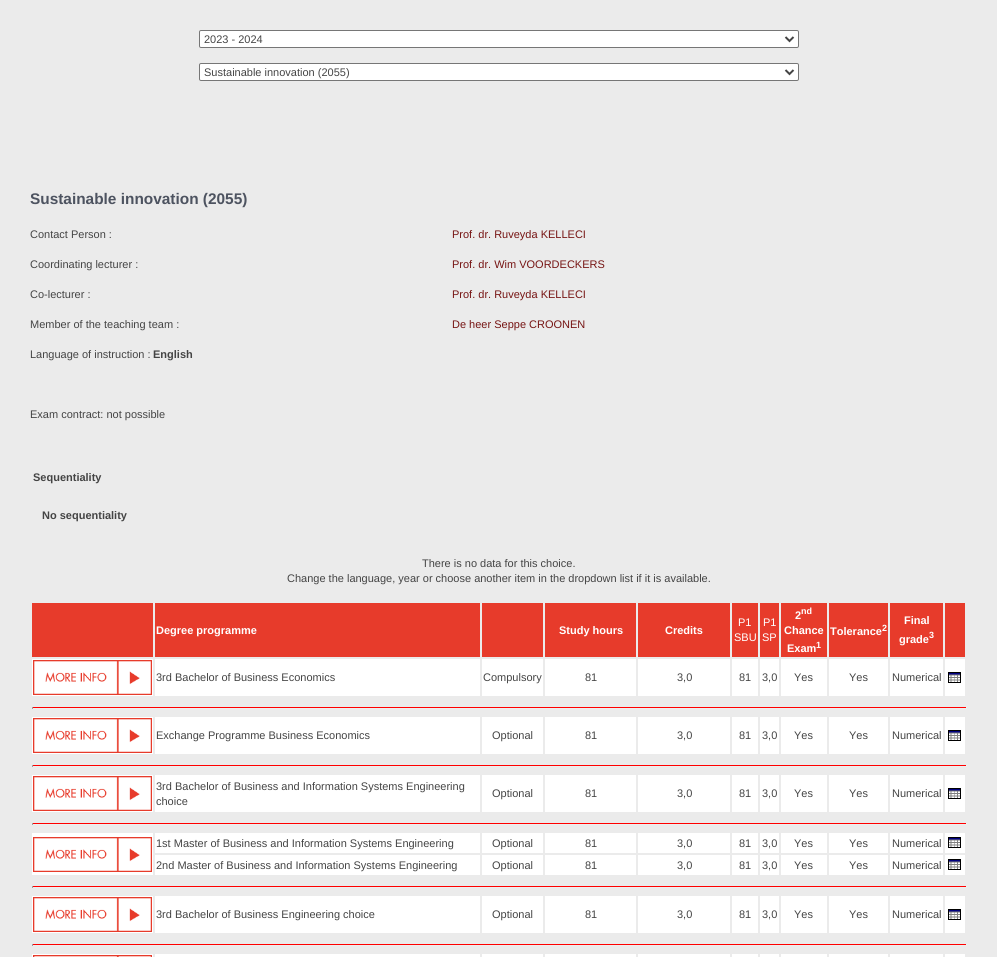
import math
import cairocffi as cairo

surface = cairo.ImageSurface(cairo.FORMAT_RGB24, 997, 957)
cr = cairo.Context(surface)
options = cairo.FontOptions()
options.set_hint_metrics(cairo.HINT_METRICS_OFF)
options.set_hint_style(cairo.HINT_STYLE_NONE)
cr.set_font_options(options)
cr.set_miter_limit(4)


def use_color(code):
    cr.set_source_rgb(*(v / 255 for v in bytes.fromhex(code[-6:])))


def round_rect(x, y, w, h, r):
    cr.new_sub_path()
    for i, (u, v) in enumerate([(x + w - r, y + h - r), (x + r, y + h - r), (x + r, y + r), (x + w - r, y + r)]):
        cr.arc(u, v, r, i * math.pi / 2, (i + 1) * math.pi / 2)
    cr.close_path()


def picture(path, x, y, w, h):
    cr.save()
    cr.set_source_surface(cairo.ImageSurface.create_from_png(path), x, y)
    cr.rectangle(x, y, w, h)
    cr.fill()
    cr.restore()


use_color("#ebebeb")
cr.paint()
use_color("#ffffff")
round_rect(199.5, 30.5, 599, 17, 1.5)
cr.fill_preserve()
use_color("#767676")
cr.set_line_width(1)
cr.stroke()
cr.new_path()
cr.move_to(785.5, 37)
cr.line_to(789.5, 41)
cr.line_to(793.5, 37)
use_color("#444444")
cr.set_line_width(2)
cr.stroke()
cr.select_font_face("Liberation Sans")
cr.set_font_size(11)
cr.move_to(204, 43)
cr.show_text("2023 - 2024")
use_color("#ffffff")
round_rect(199.5, 63.5, 599, 17, 1.5)
cr.fill_preserve()
use_color("#767676")
cr.set_line_width(1)
cr.stroke()
cr.new_path()
cr.move_to(785.5, 70)
cr.line_to(789.5, 74)
cr.line_to(793.5, 70)
use_color("#444444")
cr.set_line_width(2)
cr.stroke()
cr.move_to(204, 76)
cr.show_text("Sustainable innovation (2055)")
cr.select_font_face("Liberation Sans", cairo.FONT_SLANT_NORMAL, cairo.FONT_WEIGHT_BOLD)
cr.set_font_size(15.4)
use_color("#4d5360")
cr.move_to(30, 204)
cr.show_text("Sustainable innovation (2055)")
cr.select_font_face("Liberation Sans")
cr.set_font_size(11)
use_color("#444444")
cr.move_to(30, 238)
cr.show_text("Contact Person :")
use_color("#761413")
cr.move_to(452, 238)
cr.show_text("Prof. dr. Ruveyda KELLECI")
use_color("#444444")
cr.move_to(30, 268)
cr.show_text("Coordinating lecturer :")
use_color("#761413")
cr.move_to(452, 268)
cr.show_text("Prof. dr. Wim VOORDECKERS")
use_color("#444444")
cr.move_to(30, 298)
cr.show_text("Co-lecturer :")
use_color("#761413")
cr.move_to(452, 298)
cr.show_text("Prof. dr. Ruveyda KELLECI")
use_color("#444444")
cr.move_to(30, 328)
cr.show_text("Member of the teaching team :")
use_color("#761413")
cr.move_to(452, 328)
cr.show_text("De heer Seppe CROONEN")
use_color("#444444")
cr.move_to(30, 358)
cr.show_text("Language of instruction :")
cr.select_font_face("Liberation Sans", cairo.FONT_SLANT_NORMAL, cairo.FONT_WEIGHT_BOLD)
cr.move_to(153, 358)
cr.show_text("English")
cr.select_font_face("Liberation Sans")
cr.move_to(30, 418)
cr.show_text("Exam contract: not possible")
cr.select_font_face("Liberation Sans", cairo.FONT_SLANT_NORMAL, cairo.FONT_WEIGHT_BOLD)
cr.move_to(33, 481)
cr.show_text("Sequentiality")
cr.move_to(42, 519)
cr.show_text("No sequentiality")
cr.select_font_face("Liberation Sans")
cr.move_to(422, 567)
cr.show_text("There is no data for this choice.")
cr.move_to(287, 582)
cr.show_text("Change the language, year or choose another item in the dropdown list if it is available.")
use_color("#e73b2b")
cr.rectangle(32, 603, 121, 54)
cr.fill()
cr.rectangle(155, 603, 325, 54)
cr.fill()
cr.select_font_face("Liberation Sans", cairo.FONT_SLANT_NORMAL, cairo.FONT_WEIGHT_BOLD)
use_color("#ffffff")
cr.move_to(156, 634)
cr.show_text("Degree programme")
use_color("#e73b2b")
cr.rectangle(482, 603, 61, 54)
cr.fill()
cr.rectangle(545, 603, 91, 54)
cr.fill()
use_color("#ffffff")
cr.move_to(559, 634)
cr.show_text("Study hours")
use_color("#e73b2b")
cr.rectangle(638, 603, 92, 54)
cr.fill()
use_color("#ffffff")
cr.move_to(665, 634)
cr.show_text("Credits")
use_color("#e73b2b")
cr.rectangle(732, 603, 26, 54)
cr.fill()
cr.select_font_face("Liberation Sans")
use_color("#ffffff")
cr.move_to(738, 626)
cr.show_text("P1")
cr.move_to(734, 641)
cr.show_text("SBU")
use_color("#e73b2b")
cr.rectangle(760, 603, 19, 54)
cr.fill()
use_color("#ffffff")
cr.move_to(763, 626)
cr.show_text("P1")
cr.move_to(762, 641)
cr.show_text("SP")
use_color("#e73b2b")
cr.rectangle(781, 603, 46, 54)
cr.fill()
cr.select_font_face("Liberation Sans", cairo.FONT_SLANT_NORMAL, cairo.FONT_WEIGHT_BOLD)
use_color("#ffffff")
cr.move_to(795, 619)
cr.show_text("2")
cr.set_font_size(9)
cr.move_to(801, 614)
cr.show_text("nd")
cr.set_font_size(11)
cr.move_to(784, 634)
cr.show_text("Chance")
cr.move_to(787, 652)
cr.show_text("Exam")
cr.set_font_size(9)
cr.move_to(816, 648)
cr.show_text("1")
use_color("#e73b2b")
cr.rectangle(829, 603, 59, 54)
cr.fill()
cr.set_font_size(11)
use_color("#ffffff")
cr.move_to(830, 635)
cr.show_text("Tolerance")
cr.set_font_size(9)
cr.move_to(882, 631)
cr.show_text("2")
use_color("#e73b2b")
cr.rectangle(890, 603, 53, 54)
cr.fill()
cr.set_font_size(11)
use_color("#ffffff")
cr.move_to(904, 624)
cr.show_text("Final")
cr.move_to(899, 643)
cr.show_text("grade")
cr.set_font_size(9)
cr.move_to(929, 638)
cr.show_text("3")
use_color("#e73b2b")
cr.rectangle(945, 603, 20, 54)
cr.fill()
use_color("#ffffff")
cr.rectangle(32, 659, 121, 37)
cr.fill()
picture("img1.png", 33, 660, 119, 35)
cr.rectangle(155, 659, 325, 37)
cr.fill()
cr.select_font_face("Liberation Sans")
cr.set_font_size(11)
use_color("#444444")
cr.move_to(156, 681)
cr.show_text("3rd Bachelor of Business Economics")
use_color("#ffffff")
cr.rectangle(482, 659, 61, 37)
cr.fill()
use_color("#444444")
cr.move_to(483, 681)
cr.show_text("Compulsory")
use_color("#ffffff")
cr.rectangle(545, 659, 91, 37)
cr.fill()
use_color("#444444")
cr.move_to(585, 681)
cr.show_text("81")
use_color("#ffffff")
cr.rectangle(638, 659, 92, 37)
cr.fill()
use_color("#444444")
cr.move_to(677, 681)
cr.show_text("3,0")
use_color("#ffffff")
cr.rectangle(732, 659, 26, 37)
cr.fill()
use_color("#444444")
cr.move_to(739, 681)
cr.show_text("81")
use_color("#ffffff")
cr.rectangle(760, 659, 19, 37)
cr.fill()
use_color("#444444")
cr.move_to(762, 681)
cr.show_text("3,0")
use_color("#ffffff")
cr.rectangle(781, 659, 46, 37)
cr.fill()
use_color("#444444")
cr.move_to(794, 681)
cr.show_text("Yes")
use_color("#ffffff")
cr.rectangle(829, 659, 59, 37)
cr.fill()
use_color("#444444")
cr.move_to(849, 681)
cr.show_text("Yes")
use_color("#ffffff")
cr.rectangle(890, 659, 53, 37)
cr.fill()
use_color("#444444")
cr.move_to(892, 681)
cr.show_text("Numerical")
use_color("#ffffff")
cr.rectangle(945, 659, 20, 37)
cr.fill()
picture("img2.png", 948, 672, 13, 11)
use_color("#ff0000")
cr.rectangle(32, 707, 935, 1)
cr.fill()
use_color("#eeeeee")
cr.rectangle(966, 707, 1, 2)
cr.fill()
cr.rectangle(32, 708, 935, 1)
cr.fill()
use_color("#9f9f9f")
cr.rectangle(32, 707, 1, 2)
cr.fill()
use_color("#ffffff")
cr.rectangle(32, 717, 121, 37)
cr.fill()
picture("img1.png", 33, 718, 119, 35)
cr.rectangle(155, 717, 325, 37)
cr.fill()
use_color("#444444")
cr.move_to(156, 739)
cr.show_text("Exchange Programme Business Economics")
use_color("#ffffff")
cr.rectangle(482, 717, 61, 37)
cr.fill()
use_color("#444444")
cr.move_to(492, 739)
cr.show_text("Optional")
use_color("#ffffff")
cr.rectangle(545, 717, 91, 37)
cr.fill()
use_color("#444444")
cr.move_to(585, 739)
cr.show_text("81")
use_color("#ffffff")
cr.rectangle(638, 717, 92, 37)
cr.fill()
use_color("#444444")
cr.move_to(677, 739)
cr.show_text("3,0")
use_color("#ffffff")
cr.rectangle(732, 717, 26, 37)
cr.fill()
use_color("#444444")
cr.move_to(739, 739)
cr.show_text("81")
use_color("#ffffff")
cr.rectangle(760, 717, 19, 37)
cr.fill()
use_color("#444444")
cr.move_to(762, 739)
cr.show_text("3,0")
use_color("#ffffff")
cr.rectangle(781, 717, 46, 37)
cr.fill()
use_color("#444444")
cr.move_to(794, 739)
cr.show_text("Yes")
use_color("#ffffff")
cr.rectangle(829, 717, 59, 37)
cr.fill()
use_color("#444444")
cr.move_to(849, 739)
cr.show_text("Yes")
use_color("#ffffff")
cr.rectangle(890, 717, 53, 37)
cr.fill()
use_color("#444444")
cr.move_to(892, 739)
cr.show_text("Numerical")
use_color("#ffffff")
cr.rectangle(945, 717, 20, 37)
cr.fill()
picture("img2.png", 948, 730, 13, 11)
use_color("#ff0000")
cr.rectangle(32, 765, 935, 1)
cr.fill()
use_color("#eeeeee")
cr.rectangle(966, 765, 1, 2)
cr.fill()
cr.rectangle(32, 766, 935, 1)
cr.fill()
use_color("#9f9f9f")
cr.rectangle(32, 765, 1, 2)
cr.fill()
use_color("#ffffff")
cr.rectangle(32, 775, 121, 37)
cr.fill()
picture("img3.png", 33, 776, 119, 35)
cr.rectangle(155, 775, 325, 37)
cr.fill()
use_color("#444444")
cr.move_to(156, 790)
cr.show_text("3rd Bachelor of Business and Information Systems Engineering")
cr.move_to(156, 805)
cr.show_text("choice")
use_color("#ffffff")
cr.rectangle(482, 775, 61, 37)
cr.fill()
use_color("#444444")
cr.move_to(492, 797)
cr.show_text("Optional")
use_color("#ffffff")
cr.rectangle(545, 775, 91, 37)
cr.fill()
use_color("#444444")
cr.move_to(585, 797)
cr.show_text("81")
use_color("#ffffff")
cr.rectangle(638, 775, 92, 37)
cr.fill()
use_color("#444444")
cr.move_to(677, 797)
cr.show_text("3,0")
use_color("#ffffff")
cr.rectangle(732, 775, 26, 37)
cr.fill()
use_color("#444444")
cr.move_to(739, 797)
cr.show_text("81")
use_color("#ffffff")
cr.rectangle(760, 775, 19, 37)
cr.fill()
use_color("#444444")
cr.move_to(762, 797)
cr.show_text("3,0")
use_color("#ffffff")
cr.rectangle(781, 775, 46, 37)
cr.fill()
use_color("#444444")
cr.move_to(794, 797)
cr.show_text("Yes")
use_color("#ffffff")
cr.rectangle(829, 775, 59, 37)
cr.fill()
use_color("#444444")
cr.move_to(849, 797)
cr.show_text("Yes")
use_color("#ffffff")
cr.rectangle(890, 775, 53, 37)
cr.fill()
use_color("#444444")
cr.move_to(892, 797)
cr.show_text("Numerical")
use_color("#ffffff")
cr.rectangle(945, 775, 20, 37)
cr.fill()
picture("img2.png", 948, 788, 13, 11)
use_color("#ff0000")
cr.rectangle(32, 823, 935, 1)
cr.fill()
use_color("#eeeeee")
cr.rectangle(966, 823, 1, 2)
cr.fill()
cr.rectangle(32, 824, 935, 1)
cr.fill()
use_color("#9f9f9f")
cr.rectangle(32, 823, 1, 2)
cr.fill()
use_color("#ffffff")
cr.rectangle(32, 833, 121, 42)
cr.fill()
picture("img1.png", 33, 837, 119, 35)
cr.rectangle(155, 833, 325, 20)
cr.fill()
use_color("#444444")
cr.move_to(156, 847)
cr.show_text("1st Master of Business and Information Systems Engineering")
use_color("#ffffff")
cr.rectangle(482, 833, 61, 20)
cr.fill()
use_color("#444444")
cr.move_to(492, 847)
cr.show_text("Optional")
use_color("#ffffff")
cr.rectangle(545, 833, 91, 20)
cr.fill()
use_color("#444444")
cr.move_to(585, 847)
cr.show_text("81")
use_color("#ffffff")
cr.rectangle(638, 833, 92, 20)
cr.fill()
use_color("#444444")
cr.move_to(677, 847)
cr.show_text("3,0")
use_color("#ffffff")
cr.rectangle(732, 833, 26, 20)
cr.fill()
use_color("#444444")
cr.move_to(739, 847)
cr.show_text("81")
use_color("#ffffff")
cr.rectangle(760, 833, 19, 20)
cr.fill()
use_color("#444444")
cr.move_to(762, 847)
cr.show_text("3,0")
use_color("#ffffff")
cr.rectangle(781, 833, 46, 20)
cr.fill()
use_color("#444444")
cr.move_to(794, 847)
cr.show_text("Yes")
use_color("#ffffff")
cr.rectangle(829, 833, 59, 20)
cr.fill()
use_color("#444444")
cr.move_to(849, 847)
cr.show_text("Yes")
use_color("#ffffff")
cr.rectangle(890, 833, 53, 20)
cr.fill()
use_color("#444444")
cr.move_to(892, 847)
cr.show_text("Numerical")
use_color("#ffffff")
cr.rectangle(945, 833, 20, 20)
cr.fill()
picture("img2.png", 948, 837, 13, 11)
cr.rectangle(155, 855, 325, 20)
cr.fill()
use_color("#444444")
cr.move_to(156, 869)
cr.show_text("2nd Master of Business and Information Systems Engineering")
use_color("#ffffff")
cr.rectangle(482, 855, 61, 20)
cr.fill()
use_color("#444444")
cr.move_to(492, 869)
cr.show_text("Optional")
use_color("#ffffff")
cr.rectangle(545, 855, 91, 20)
cr.fill()
use_color("#444444")
cr.move_to(585, 869)
cr.show_text("81")
use_color("#ffffff")
cr.rectangle(638, 855, 92, 20)
cr.fill()
use_color("#444444")
cr.move_to(677, 869)
cr.show_text("3,0")
use_color("#ffffff")
cr.rectangle(732, 855, 26, 20)
cr.fill()
use_color("#444444")
cr.move_to(739, 869)
cr.show_text("81")
use_color("#ffffff")
cr.rectangle(760, 855, 19, 20)
cr.fill()
use_color("#444444")
cr.move_to(762, 869)
cr.show_text("3,0")
use_color("#ffffff")
cr.rectangle(781, 855, 46, 20)
cr.fill()
use_color("#444444")
cr.move_to(794, 869)
cr.show_text("Yes")
use_color("#ffffff")
cr.rectangle(829, 855, 59, 20)
cr.fill()
use_color("#444444")
cr.move_to(849, 869)
cr.show_text("Yes")
use_color("#ffffff")
cr.rectangle(890, 855, 53, 20)
cr.fill()
use_color("#444444")
cr.move_to(892, 869)
cr.show_text("Numerical")
use_color("#ffffff")
cr.rectangle(945, 855, 20, 20)
cr.fill()
picture("img2.png", 948, 859, 13, 11)
use_color("#ff0000")
cr.rectangle(32, 886, 935, 1)
cr.fill()
use_color("#eeeeee")
cr.rectangle(966, 886, 1, 2)
cr.fill()
cr.rectangle(32, 887, 935, 1)
cr.fill()
use_color("#9f9f9f")
cr.rectangle(32, 886, 1, 2)
cr.fill()
use_color("#ffffff")
cr.rectangle(32, 896, 121, 37)
cr.fill()
picture("img1.png", 33, 897, 119, 35)
cr.rectangle(155, 896, 325, 37)
cr.fill()
use_color("#444444")
cr.move_to(156, 918)
cr.show_text("3rd Bachelor of Business Engineering choice")
use_color("#ffffff")
cr.rectangle(482, 896, 61, 37)
cr.fill()
use_color("#444444")
cr.move_to(492, 918)
cr.show_text("Optional")
use_color("#ffffff")
cr.rectangle(545, 896, 91, 37)
cr.fill()
use_color("#444444")
cr.move_to(585, 918)
cr.show_text("81")
use_color("#ffffff")
cr.rectangle(638, 896, 92, 37)
cr.fill()
use_color("#444444")
cr.move_to(677, 918)
cr.show_text("3,0")
use_color("#ffffff")
cr.rectangle(732, 896, 26, 37)
cr.fill()
use_color("#444444")
cr.move_to(739, 918)
cr.show_text("81")
use_color("#ffffff")
cr.rectangle(760, 896, 19, 37)
cr.fill()
use_color("#444444")
cr.move_to(762, 918)
cr.show_text("3,0")
use_color("#ffffff")
cr.rectangle(781, 896, 46, 37)
cr.fill()
use_color("#444444")
cr.move_to(794, 918)
cr.show_text("Yes")
use_color("#ffffff")
cr.rectangle(829, 896, 59, 37)
cr.fill()
use_color("#444444")
cr.move_to(849, 918)
cr.show_text("Yes")
use_color("#ffffff")
cr.rectangle(890, 896, 53, 37)
cr.fill()
use_color("#444444")
cr.move_to(892, 918)
cr.show_text("Numerical")
use_color("#ffffff")
cr.rectangle(945, 896, 20, 37)
cr.fill()
picture("img2.png", 948, 909, 13, 11)
use_color("#ff0000")
cr.rectangle(32, 944, 935, 1)
cr.fill()
use_color("#eeeeee")
cr.rectangle(966, 944, 1, 2)
cr.fill()
cr.rectangle(32, 945, 935, 1)
cr.fill()
use_color("#9f9f9f")
cr.rectangle(32, 944, 1, 2)
cr.fill()
use_color("#ffffff")
cr.rectangle(31, 954, 935, 3)
cr.fill()
use_color("#ebebeb")
cr.rectangle(31, 952, 1, 5)
cr.fill()
picture("img4.png", 33, 955, 119, 2)
cr.rectangle(153, 952, 2, 5)
cr.fill()
cr.rectangle(480, 952, 2, 5)
cr.fill()
cr.rectangle(543, 952, 2, 5)
cr.fill()
cr.rectangle(636, 952, 2, 5)
cr.fill()
cr.rectangle(730, 952, 2, 5)
cr.fill()
cr.rectangle(758, 952, 2, 5)
cr.fill()
cr.rectangle(779, 952, 2, 5)
cr.fill()
cr.rectangle(827, 952, 2, 5)
cr.fill()
cr.rectangle(888, 952, 2, 5)
cr.fill()
cr.rectangle(965, 952, 1, 5)
cr.fill()
cr.rectangle(943, 952, 2, 5)
cr.fill()
surface.write_to_png("result.png")
